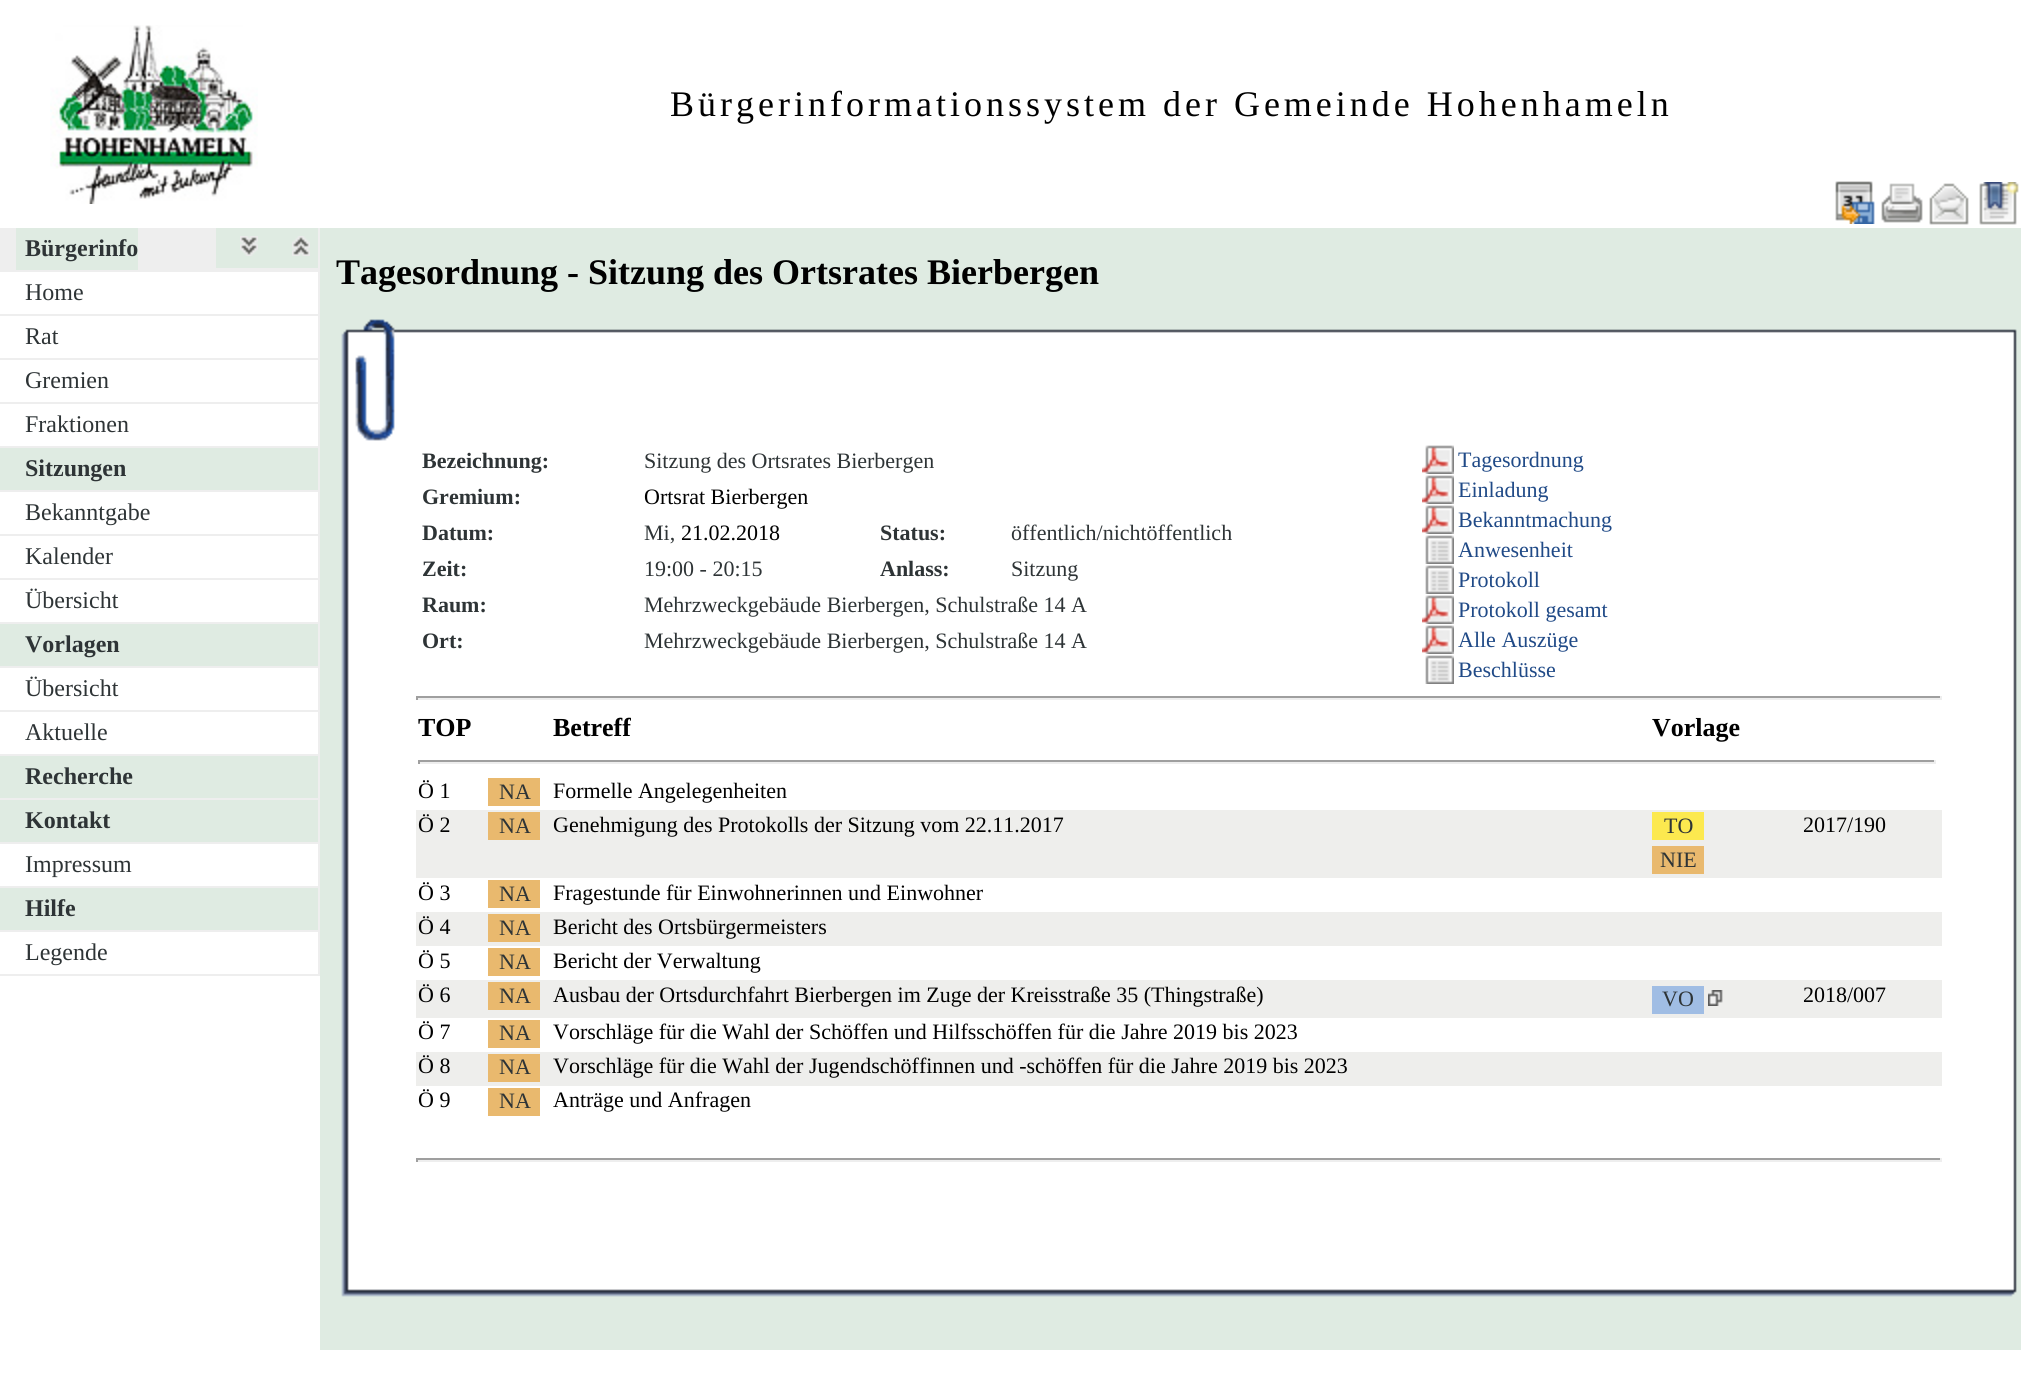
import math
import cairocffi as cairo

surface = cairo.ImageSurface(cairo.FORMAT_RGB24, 2021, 1392)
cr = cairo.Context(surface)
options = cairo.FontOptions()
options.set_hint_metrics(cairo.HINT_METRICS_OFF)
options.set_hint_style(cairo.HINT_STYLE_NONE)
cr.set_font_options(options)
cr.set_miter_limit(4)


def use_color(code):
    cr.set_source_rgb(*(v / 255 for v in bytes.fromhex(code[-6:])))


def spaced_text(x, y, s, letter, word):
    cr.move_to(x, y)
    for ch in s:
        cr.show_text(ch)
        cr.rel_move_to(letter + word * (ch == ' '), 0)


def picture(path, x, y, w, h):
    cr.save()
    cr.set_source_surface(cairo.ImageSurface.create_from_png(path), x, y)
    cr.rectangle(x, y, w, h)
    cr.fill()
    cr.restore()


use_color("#ffffff")
cr.paint()
use_color("#eeeeee")
cr.rectangle(0, 228, 320, 748)
cr.fill()
picture("img1.png", 50, 25, 208, 179)
use_color("#dfebe2")
cr.rectangle(16, 228, 122, 42)
cr.fill()
cr.select_font_face("Liberation Serif", cairo.FONT_SLANT_NORMAL, cairo.FONT_WEIGHT_BOLD)
cr.set_font_size(24)
use_color("#2e3436")
cr.move_to(25, 256)
cr.show_text("Bürgerinfo")
use_color("#dfebe2")
cr.rectangle(216, 228, 102, 40)
cr.fill()
picture("img2.png", 240, 236, 18, 20)
picture("img3.png", 292, 236, 18, 20)
use_color("#ffffff")
cr.rectangle(0, 272, 318, 42)
cr.fill()
cr.select_font_face("Liberation Serif")
use_color("#2e3436")
cr.move_to(25, 300)
cr.show_text("Home")
use_color("#ffffff")
cr.rectangle(0, 316, 318, 42)
cr.fill()
use_color("#2e3436")
cr.move_to(25, 344)
cr.show_text("Rat")
use_color("#ffffff")
cr.rectangle(0, 360, 318, 42)
cr.fill()
use_color("#2e3436")
cr.move_to(25, 388)
cr.show_text("Gremien")
use_color("#ffffff")
cr.rectangle(0, 404, 318, 42)
cr.fill()
use_color("#2e3436")
cr.move_to(25, 432)
cr.show_text("Fraktionen")
use_color("#dfebe2")
cr.rectangle(0, 448, 318, 42)
cr.fill()
cr.select_font_face("Liberation Serif", cairo.FONT_SLANT_NORMAL, cairo.FONT_WEIGHT_BOLD)
use_color("#2e3436")
cr.move_to(25, 476)
cr.show_text("Sitzungen")
use_color("#ffffff")
cr.rectangle(0, 492, 318, 42)
cr.fill()
cr.select_font_face("Liberation Serif")
use_color("#2e3436")
cr.move_to(25, 520)
cr.show_text("Bekanntgabe")
use_color("#ffffff")
cr.rectangle(0, 536, 318, 42)
cr.fill()
use_color("#2e3436")
cr.move_to(25, 564)
cr.show_text("Kalender")
use_color("#ffffff")
cr.rectangle(0, 580, 318, 42)
cr.fill()
use_color("#2e3436")
cr.move_to(25, 608)
cr.show_text("Übersicht")
use_color("#dfebe2")
cr.rectangle(0, 624, 318, 42)
cr.fill()
cr.select_font_face("Liberation Serif", cairo.FONT_SLANT_NORMAL, cairo.FONT_WEIGHT_BOLD)
use_color("#2e3436")
cr.move_to(25, 652)
cr.show_text("Vorlagen")
use_color("#ffffff")
cr.rectangle(0, 668, 318, 42)
cr.fill()
cr.select_font_face("Liberation Serif")
use_color("#2e3436")
cr.move_to(25, 696)
cr.show_text("Übersicht")
use_color("#ffffff")
cr.rectangle(0, 712, 318, 42)
cr.fill()
use_color("#2e3436")
cr.move_to(25, 740)
cr.show_text("Aktuelle")
use_color("#dfebe2")
cr.rectangle(0, 756, 318, 42)
cr.fill()
cr.select_font_face("Liberation Serif", cairo.FONT_SLANT_NORMAL, cairo.FONT_WEIGHT_BOLD)
use_color("#2e3436")
cr.move_to(25, 784)
cr.show_text("Recherche")
use_color("#dfebe2")
cr.rectangle(0, 800, 318, 42)
cr.fill()
use_color("#2e3436")
cr.move_to(25, 828)
cr.show_text("Kontakt")
use_color("#ffffff")
cr.rectangle(0, 844, 318, 42)
cr.fill()
cr.select_font_face("Liberation Serif")
use_color("#2e3436")
cr.move_to(25, 872)
cr.show_text("Impressum")
use_color("#dfebe2")
cr.rectangle(0, 888, 318, 42)
cr.fill()
cr.select_font_face("Liberation Serif", cairo.FONT_SLANT_NORMAL, cairo.FONT_WEIGHT_BOLD)
use_color("#2e3436")
cr.move_to(25, 916)
cr.show_text("Hilfe")
use_color("#ffffff")
cr.rectangle(0, 932, 318, 42)
cr.fill()
cr.select_font_face("Liberation Serif")
use_color("#2e3436")
cr.move_to(25, 960)
cr.show_text("Legende")
use_color("#dfebe2")
cr.rectangle(320, 228, 1701, 1122)
cr.fill()
cr.set_font_size(36)
use_color("#000000")
spaced_text(670, 116, "Bürgerinformationssystem der Gemeinde Hohenhameln", 4, 0)
picture("img4.png", 1835, 181, 40, 43)
picture("img5.png", 1881, 183, 42, 40)
picture("img6.png", 1929, 183, 40, 42)
picture("img7.png", 1979, 182, 40, 43)
cr.select_font_face("Liberation Serif", cairo.FONT_SLANT_NORMAL, cairo.FONT_WEIGHT_BOLD)
cr.move_to(336, 284)
cr.show_text("Tagesordnung - Sitzung des Ortsrates Bierbergen")
picture("img8.png", 341, 319, 75, 123)
picture("img9.png", 416, 329, 1526, 113)
picture("img10.png", 1942, 329, 75, 113)
picture("img11.png", 341, 442, 75, 732)
use_color("#ffffff")
cr.rectangle(416, 442, 1526, 732)
cr.fill()
cr.set_font_size(22)
use_color("#2e3436")
cr.move_to(422, 468)
cr.show_text("Bezeichnung:")
cr.select_font_face("Liberation Serif")
cr.move_to(644, 468)
cr.show_text("Sitzung des Ortsrates Bierbergen")
cr.select_font_face("Liberation Serif", cairo.FONT_SLANT_NORMAL, cairo.FONT_WEIGHT_BOLD)
cr.move_to(422, 504)
cr.show_text("Gremium:")
cr.select_font_face("Liberation Serif")
use_color("#000000")
cr.move_to(644, 504)
cr.show_text("Ortsrat Bierbergen")
cr.select_font_face("Liberation Serif", cairo.FONT_SLANT_NORMAL, cairo.FONT_WEIGHT_BOLD)
use_color("#2e3436")
cr.move_to(422, 540)
cr.show_text("Datum:")
cr.select_font_face("Liberation Serif")
cr.move_to(644, 540)
cr.show_text("Mi,")
use_color("#000000")
cr.move_to(681, 540)
cr.show_text("21.02.2018")
cr.select_font_face("Liberation Serif", cairo.FONT_SLANT_NORMAL, cairo.FONT_WEIGHT_BOLD)
use_color("#2e3436")
cr.move_to(880, 540)
cr.show_text("Status:")
cr.select_font_face("Liberation Serif")
cr.move_to(1011, 540)
cr.show_text("öffentlich/nichtöffentlich")
cr.select_font_face("Liberation Serif", cairo.FONT_SLANT_NORMAL, cairo.FONT_WEIGHT_BOLD)
cr.move_to(422, 576)
cr.show_text("Zeit:")
cr.select_font_face("Liberation Serif")
cr.move_to(644, 576)
cr.show_text("19:00 - 20:15")
cr.select_font_face("Liberation Serif", cairo.FONT_SLANT_NORMAL, cairo.FONT_WEIGHT_BOLD)
cr.move_to(880, 576)
cr.show_text("Anlass:")
cr.select_font_face("Liberation Serif")
cr.move_to(1011, 576)
cr.show_text("Sitzung")
cr.select_font_face("Liberation Serif", cairo.FONT_SLANT_NORMAL, cairo.FONT_WEIGHT_BOLD)
cr.move_to(422, 612)
cr.show_text("Raum:")
cr.select_font_face("Liberation Serif")
cr.move_to(644, 612)
cr.show_text("Mehrzweckgebäude Bierbergen, Schulstraße 14 A")
cr.select_font_face("Liberation Serif", cairo.FONT_SLANT_NORMAL, cairo.FONT_WEIGHT_BOLD)
cr.move_to(422, 648)
cr.show_text("Ort:")
cr.select_font_face("Liberation Serif")
cr.move_to(644, 648)
cr.show_text("Mehrzweckgebäude Bierbergen, Schulstraße 14 A")
picture("img12.png", 1422, 445, 32, 29)
use_color("#204a87")
cr.move_to(1458, 467)
cr.show_text("Tagesordnung")
picture("img12.png", 1422, 475, 32, 29)
cr.move_to(1458, 497)
cr.show_text("Einladung")
picture("img12.png", 1422, 505, 32, 29)
cr.move_to(1458, 527)
cr.show_text("Bekanntmachung")
picture("img13.png", 1425, 535, 29, 29)
cr.move_to(1458, 557)
cr.show_text("Anwesenheit")
picture("img13.png", 1425, 565, 29, 29)
cr.move_to(1458, 587)
cr.show_text("Protokoll")
picture("img12.png", 1422, 595, 32, 29)
cr.move_to(1458, 617)
cr.show_text("Protokoll gesamt")
picture("img12.png", 1422, 625, 32, 29)
cr.move_to(1458, 647)
cr.show_text("Alle Auszüge")
picture("img13.png", 1425, 655, 29, 29)
cr.move_to(1458, 677)
cr.show_text("Beschlüsse")
use_color("#9f9f9f")
cr.rectangle(416, 696, 1526, 2)
cr.fill()
use_color("#eeeeee")
cr.rectangle(1940, 696, 2, 4)
cr.fill()
cr.rectangle(416, 698, 1526, 2)
cr.fill()
use_color("#9f9f9f")
cr.rectangle(416, 696, 2, 4)
cr.fill()
cr.select_font_face("Liberation Serif", cairo.FONT_SLANT_NORMAL, cairo.FONT_WEIGHT_BOLD)
cr.set_font_size(26)
use_color("#000000")
cr.move_to(418, 736)
cr.show_text("TOP")
cr.move_to(553, 736)
cr.show_text("Betreff")
cr.move_to(1652, 736)
cr.show_text("Vorlage")
use_color("#9f9f9f")
cr.rectangle(418, 760, 1518, 2)
cr.fill()
use_color("#eeeeee")
cr.rectangle(1934, 760, 2, 4)
cr.fill()
cr.rectangle(418, 762, 1518, 2)
cr.fill()
use_color("#9f9f9f")
cr.rectangle(418, 760, 2, 4)
cr.fill()
cr.select_font_face("Liberation Serif")
cr.set_font_size(22)
use_color("#000000")
cr.move_to(418, 798)
cr.show_text("Ö 1")
use_color("#e9b96e")
cr.rectangle(488, 778, 52, 28)
cr.fill()
use_color("#2e3436")
cr.move_to(499, 799)
cr.show_text("NA")
use_color("#000000")
cr.move_to(553, 798)
cr.show_text("Formelle Angelegenheiten")
use_color("#eeeeec")
cr.rectangle(416, 810, 1526, 68)
cr.fill()
use_color("#000000")
cr.move_to(418, 832)
cr.show_text("Ö 2")
use_color("#e9b96e")
cr.rectangle(488, 812, 52, 28)
cr.fill()
use_color("#2e3436")
cr.move_to(499, 833)
cr.show_text("NA")
use_color("#000000")
cr.move_to(553, 832)
cr.show_text("Genehmigung des Protokolls der Sitzung vom 22.11.2017")
use_color("#fce94f")
cr.rectangle(1652, 812, 52, 28)
cr.fill()
use_color("#2e3436")
cr.move_to(1664, 833)
cr.show_text("TO")
use_color("#000000")
cr.move_to(1803, 832)
cr.show_text("2017/190")
use_color("#e9b96e")
cr.rectangle(1652, 846, 52, 28)
cr.fill()
use_color("#2e3436")
cr.move_to(1660, 867)
cr.show_text("NIE")
use_color("#000000")
cr.move_to(418, 900)
cr.show_text("Ö 3")
use_color("#e9b96e")
cr.rectangle(488, 880, 52, 28)
cr.fill()
use_color("#2e3436")
cr.move_to(499, 901)
cr.show_text("NA")
use_color("#000000")
cr.move_to(553, 900)
cr.show_text("Fragestunde für Einwohnerinnen und Einwohner")
use_color("#eeeeec")
cr.rectangle(416, 912, 1526, 34)
cr.fill()
use_color("#000000")
cr.move_to(418, 934)
cr.show_text("Ö 4")
use_color("#e9b96e")
cr.rectangle(488, 914, 52, 28)
cr.fill()
use_color("#2e3436")
cr.move_to(499, 935)
cr.show_text("NA")
use_color("#000000")
cr.move_to(553, 934)
cr.show_text("Bericht des Ortsbürgermeisters")
cr.move_to(418, 968)
cr.show_text("Ö 5")
use_color("#e9b96e")
cr.rectangle(488, 948, 52, 28)
cr.fill()
use_color("#2e3436")
cr.move_to(499, 969)
cr.show_text("NA")
use_color("#000000")
cr.move_to(553, 968)
cr.show_text("Bericht der Verwaltung")
use_color("#eeeeec")
cr.rectangle(416, 980, 1526, 38)
cr.fill()
use_color("#000000")
cr.move_to(418, 1002)
cr.show_text("Ö 6")
use_color("#e9b96e")
cr.rectangle(488, 982, 52, 28)
cr.fill()
use_color("#2e3436")
cr.move_to(499, 1003)
cr.show_text("NA")
use_color("#000000")
cr.move_to(553, 1002)
cr.show_text("Ausbau der Ortsdurchfahrt Bierbergen im Zuge der Kreisstraße 35 (Thingstraße)")
use_color("#a0bde4")
cr.rectangle(1652, 986, 52, 28)
cr.fill()
use_color("#2e3436")
cr.move_to(1662, 1006)
cr.show_text("VO")
picture("img14.png", 1708, 990, 15, 16)
use_color("#000000")
cr.move_to(1803, 1002)
cr.show_text("2018/007")
cr.move_to(418, 1039)
cr.show_text("Ö 7")
use_color("#e9b96e")
cr.rectangle(488, 1020, 52, 28)
cr.fill()
use_color("#2e3436")
cr.move_to(499, 1040)
cr.show_text("NA")
use_color("#000000")
cr.move_to(553, 1039)
cr.show_text("Vorschläge für die Wahl der Schöffen und Hilfsschöffen für die Jahre 2019 bis 2023")
use_color("#eeeeec")
cr.rectangle(416, 1052, 1526, 34)
cr.fill()
use_color("#000000")
cr.move_to(418, 1073)
cr.show_text("Ö 8")
use_color("#e9b96e")
cr.rectangle(488, 1054, 52, 28)
cr.fill()
use_color("#2e3436")
cr.move_to(499, 1074)
cr.show_text("NA")
use_color("#000000")
cr.move_to(553, 1073)
cr.show_text("Vorschläge für die Wahl der Jugendschöffinnen und -schöffen für die Jahre 2019 bis 2023")
cr.move_to(418, 1107)
cr.show_text("Ö 9")
use_color("#e9b96e")
cr.rectangle(488, 1088, 52, 28)
cr.fill()
use_color("#2e3436")
cr.move_to(499, 1108)
cr.show_text("NA")
use_color("#000000")
cr.move_to(553, 1107)
cr.show_text("Anträge und Anfragen")
use_color("#9f9f9f")
cr.rectangle(416, 1158, 1526, 2)
cr.fill()
use_color("#eeeeee")
cr.rectangle(1940, 1158, 2, 4)
cr.fill()
cr.rectangle(416, 1160, 1526, 2)
cr.fill()
use_color("#9f9f9f")
cr.rectangle(416, 1158, 2, 4)
cr.fill()
picture("img15.png", 1942, 442, 75, 732)
picture("img16.png", 341, 1174, 75, 123)
picture("img17.png", 416, 1174, 1526, 123)
picture("img18.png", 1942, 1174, 75, 123)
surface.write_to_png("result.png")
